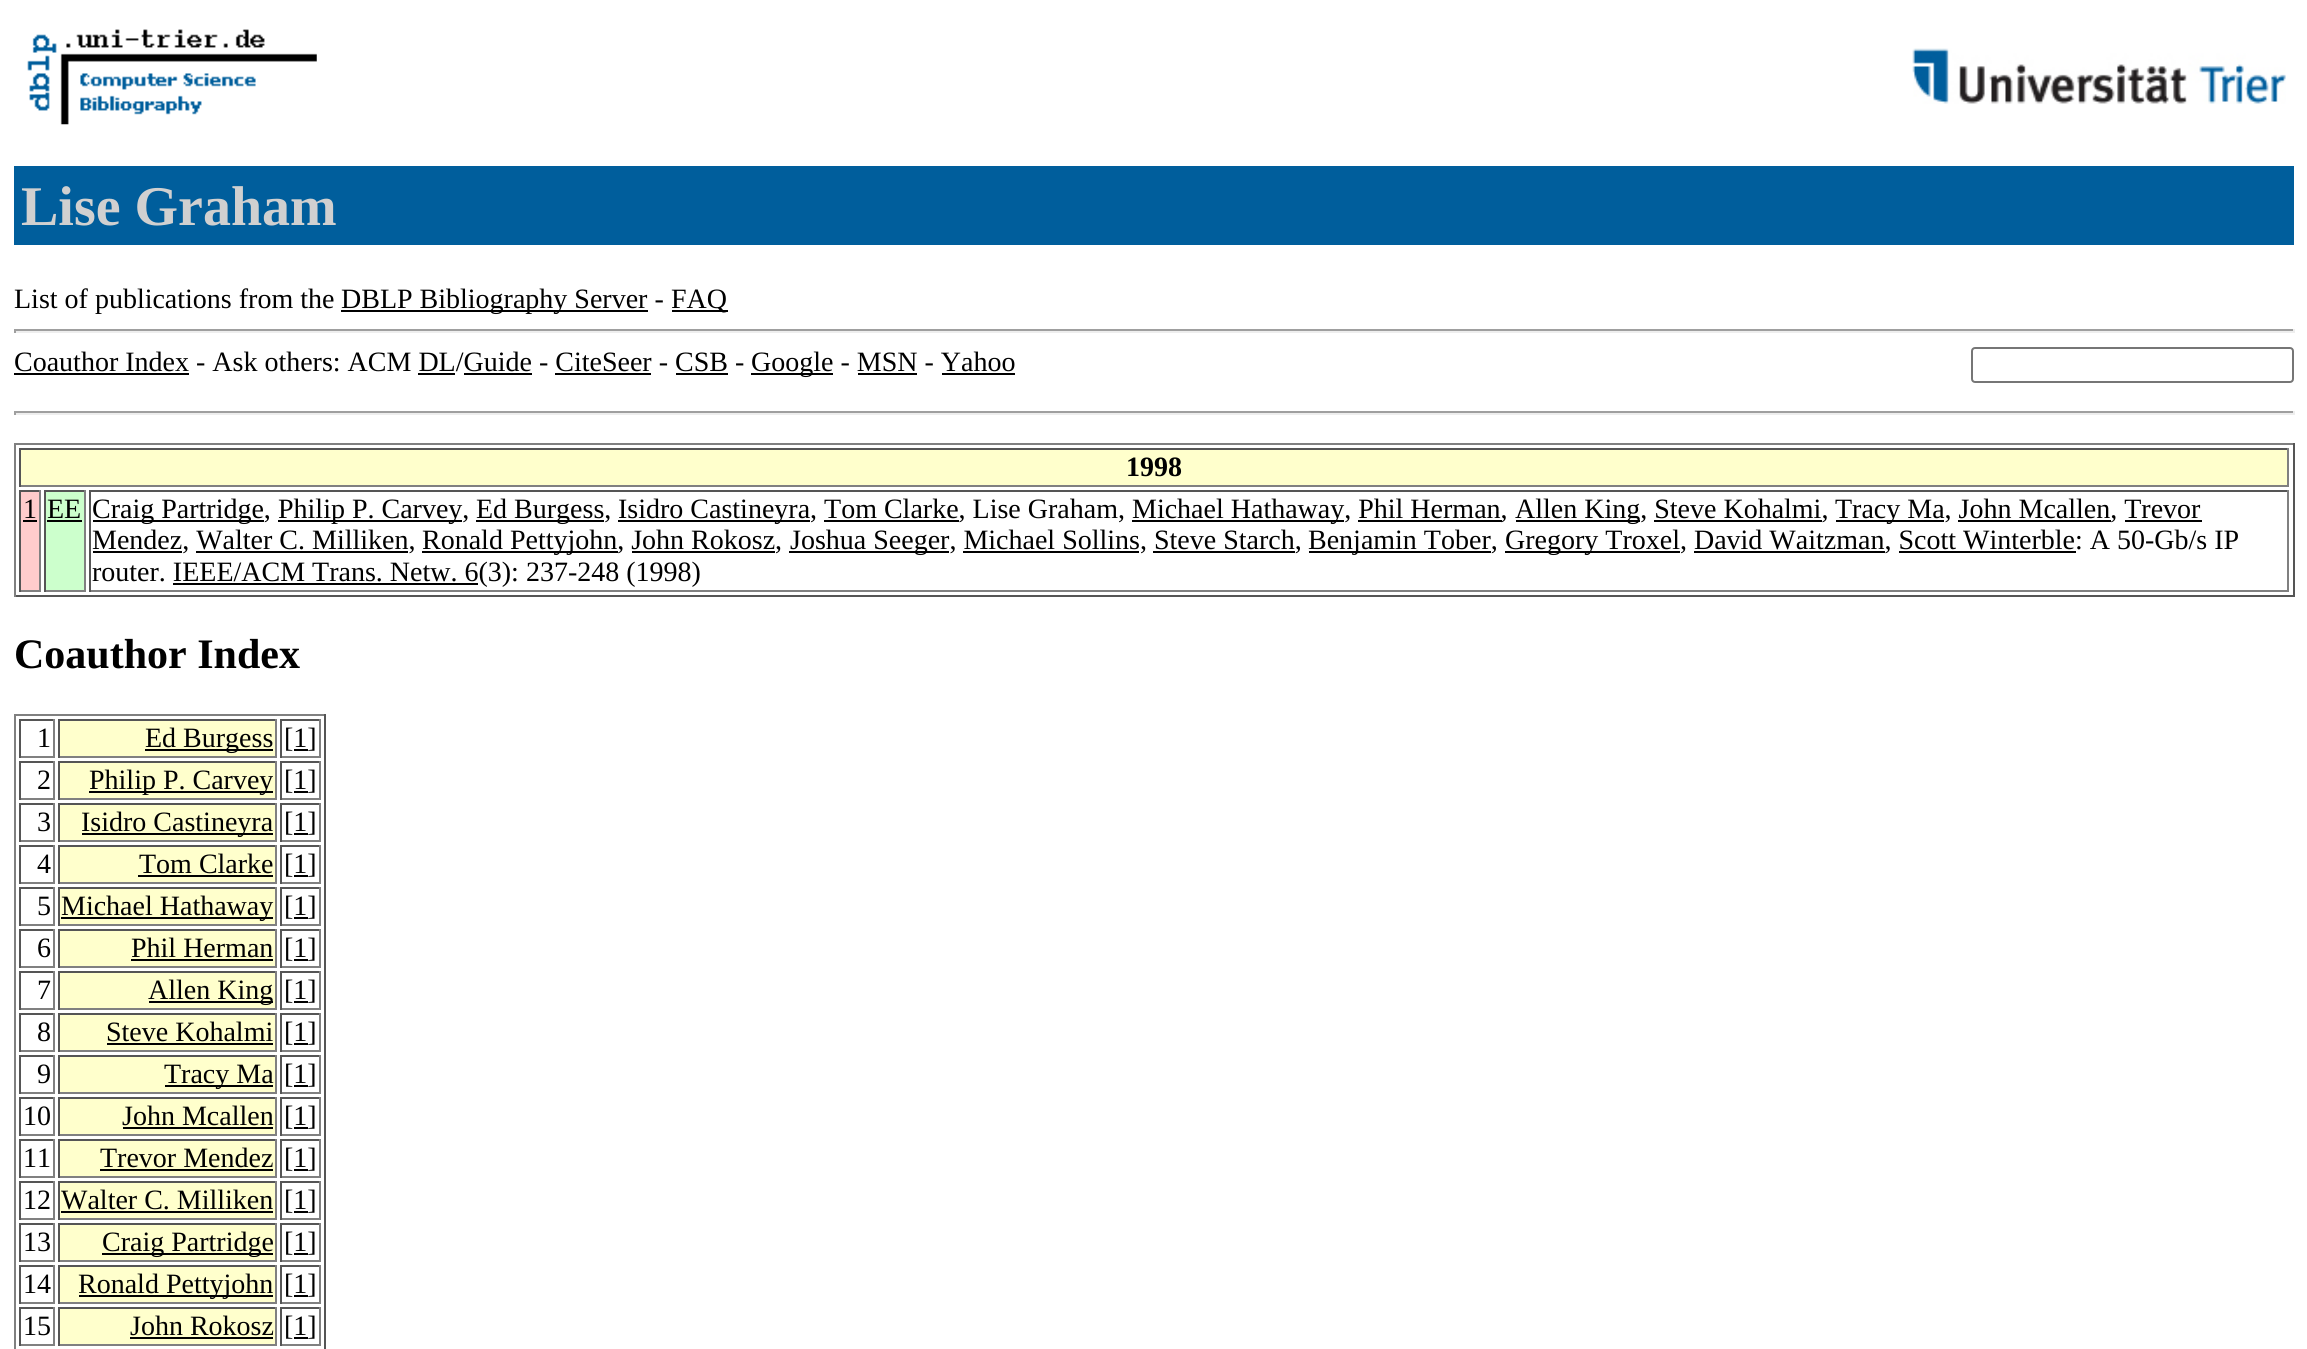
import math
import cairocffi as cairo

surface = cairo.ImageSurface(cairo.FORMAT_RGB24, 2307, 1349)
cr = cairo.Context(surface)
options = cairo.FontOptions()
options.set_hint_metrics(cairo.HINT_METRICS_OFF)
options.set_hint_style(cairo.HINT_STYLE_NONE)
cr.set_font_options(options)
cr.set_miter_limit(4)


def use_color(code):
    cr.set_source_rgb(*(v / 255 for v in bytes.fromhex(code[-6:])))


def round_rect(x, y, w, h, r):
    cr.new_sub_path()
    for i, (u, v) in enumerate([(x + w - r, y + h - r), (x + r, y + h - r), (x + r, y + r), (x + w - r, y + r)]):
        cr.arc(u, v, r, i * math.pi / 2, (i + 1) * math.pi / 2)
    cr.close_path()


def picture(path, x, y, w, h):
    cr.save()
    cr.set_source_surface(cairo.ImageSurface.create_from_png(path), x, y)
    cr.rectangle(x, y, w, h)
    cr.fill()
    cr.restore()


use_color("#ffffff")
cr.paint()
picture("img1.png", 27, 29, 290, 96)
picture("img2.png", 1912, 48, 374, 56)
use_color("#005e9c")
cr.rectangle(14, 166, 2280, 79)
cr.fill()
cr.select_font_face("Liberation Serif", cairo.FONT_SLANT_NORMAL, cairo.FONT_WEIGHT_BOLD)
cr.set_font_size(56)
use_color("#d0d0d0")
cr.move_to(21, 225)
cr.show_text("Lise Graham")
cr.select_font_face("Liberation Serif")
cr.set_font_size(28)
use_color("#000000")
cr.move_to(14, 308)
cr.show_text("List of publications from the")
cr.rectangle(341, 310, 307, 2)
cr.fill()
cr.move_to(341, 308)
cr.show_text("DBLP Bibliography Server -")
cr.rectangle(672, 310, 56, 2)
cr.fill()
cr.move_to(671, 308)
cr.show_text("FAQ")
use_color("#9f9f9f")
cr.rectangle(14, 329, 2280, 2)
cr.fill()
use_color("#eeeeee")
cr.rectangle(2293, 329, 2, 4)
cr.fill()
cr.rectangle(14, 331, 2280, 2)
cr.fill()
use_color("#9f9f9f")
cr.rectangle(14, 329, 2, 4)
cr.fill()
use_color("#000000")
cr.move_to(14, 371)
cr.show_text("Coauthor Index - Ask others: ACM DL/Guide - CiteSeer - CSB -")
cr.rectangle(14, 373, 175, 2)
cr.fill()
cr.rectangle(751, 373, 82, 2)
cr.fill()
cr.move_to(751, 371)
cr.show_text("Google - MSN - Yahoo")
round_rect(1972, 348, 321, 34, 3)
use_color("#767676")
cr.stroke()
use_color("#000000")
cr.rectangle(418, 373, 37, 2)
cr.fill()
cr.rectangle(464, 373, 68, 2)
cr.fill()
cr.rectangle(555, 373, 96, 2)
cr.fill()
cr.rectangle(676, 373, 52, 2)
cr.fill()
cr.rectangle(858, 373, 59, 2)
cr.fill()
cr.rectangle(942, 373, 73, 2)
cr.fill()
use_color("#9f9f9f")
cr.rectangle(14, 411, 2280, 2)
cr.fill()
use_color("#eeeeee")
cr.rectangle(2293, 411, 2, 4)
cr.fill()
cr.rectangle(14, 413, 2280, 2)
cr.fill()
use_color("#9f9f9f")
cr.rectangle(14, 411, 2, 4)
cr.fill()
use_color("#808080")
cr.rectangle(14, 443, 2280, 2)
cr.fill()
use_color("#555555")
cr.rectangle(2293, 443, 2, 154)
cr.fill()
cr.rectangle(14, 595, 2280, 2)
cr.fill()
use_color("#808080")
cr.rectangle(14, 443, 2, 154)
cr.fill()
use_color("#ffffcc")
cr.rectangle(21, 450, 2266, 35)
cr.fill()
use_color("#555555")
cr.rectangle(19, 448, 2270, 2)
cr.fill()
use_color("#808080")
cr.rectangle(2287, 448, 2, 39)
cr.fill()
cr.rectangle(19, 485, 2270, 2)
cr.fill()
use_color("#555555")
cr.rectangle(19, 448, 2, 39)
cr.fill()
cr.select_font_face("Liberation Serif", cairo.FONT_SLANT_NORMAL, cairo.FONT_WEIGHT_BOLD)
use_color("#000000")
cr.move_to(1126, 476)
cr.show_text("1998")
use_color("#ffcccc")
cr.rectangle(21, 492, 18, 98)
cr.fill()
use_color("#555555")
cr.rectangle(19, 490, 21, 2)
cr.fill()
use_color("#808080")
cr.rectangle(39, 490, 2, 102)
cr.fill()
cr.rectangle(19, 590, 21, 2)
cr.fill()
use_color("#555555")
cr.rectangle(19, 490, 2, 102)
cr.fill()
cr.select_font_face("Liberation Serif")
use_color("#000000")
cr.move_to(23, 518)
cr.show_text("1")
cr.rectangle(23, 520, 14, 2)
cr.fill()
use_color("#ccffcc")
cr.rectangle(46, 492, 38, 98)
cr.fill()
use_color("#555555")
cr.rectangle(44, 490, 42, 2)
cr.fill()
use_color("#808080")
cr.rectangle(84, 490, 2, 102)
cr.fill()
cr.rectangle(44, 590, 42, 2)
cr.fill()
use_color("#555555")
cr.rectangle(44, 490, 2, 102)
cr.fill()
use_color("#000000")
cr.move_to(47, 518)
cr.show_text("EE")
cr.rectangle(47, 520, 35, 2)
cr.fill()
use_color("#555555")
cr.rectangle(89, 490, 2200, 2)
cr.fill()
use_color("#808080")
cr.rectangle(2287, 490, 2, 102)
cr.fill()
cr.rectangle(89, 590, 2200, 2)
cr.fill()
use_color("#555555")
cr.rectangle(89, 490, 2, 102)
cr.fill()
use_color("#000000")
cr.rectangle(93, 520, 171, 2)
cr.fill()
cr.move_to(92, 518)
cr.show_text("Craig Partridge,")
cr.rectangle(278, 520, 184, 2)
cr.fill()
cr.move_to(278, 518)
cr.show_text("Philip P. Carvey,")
cr.rectangle(476, 520, 128, 2)
cr.fill()
cr.move_to(476, 518)
cr.show_text("Ed Burgess,")
cr.rectangle(618, 520, 192, 2)
cr.fill()
cr.move_to(618, 518)
cr.show_text("Isidro Castineyra, Tom Clarke, Lise Graham,")
cr.rectangle(1132, 520, 212, 2)
cr.fill()
cr.move_to(1132, 518)
cr.show_text("Michael Hathaway, Phil Herman,")
cr.rectangle(1516, 520, 124, 2)
cr.fill()
cr.move_to(1515, 518)
cr.show_text("Allen King, Steve Kohalmi,")
cr.rectangle(1836, 520, 108, 2)
cr.fill()
cr.move_to(1835, 518)
cr.show_text("Tracy Ma, John Mcallen, Trevor")
cr.rectangle(824, 520, 135, 2)
cr.fill()
cr.rectangle(1358, 520, 144, 2)
cr.fill()
cr.rectangle(1654, 520, 168, 2)
cr.fill()
cr.rectangle(1958, 520, 153, 2)
cr.fill()
cr.rectangle(93, 551, 89, 2)
cr.fill()
cr.move_to(92, 549)
cr.show_text("Mendez, Walter C. Milliken,")
cr.rectangle(2125, 520, 77, 2)
cr.fill()
cr.rectangle(422, 551, 196, 2)
cr.fill()
cr.move_to(422, 549)
cr.show_text("Ronald Pettyjohn, John Rokosz,")
cr.rectangle(789, 551, 160, 2)
cr.fill()
cr.move_to(790, 549)
cr.show_text("Joshua Seeger, Michael Sollins, Steve Starch,")
cr.rectangle(1309, 551, 182, 2)
cr.fill()
cr.move_to(1308, 549)
cr.show_text("Benjamin Tober,")
cr.rectangle(1505, 551, 175, 2)
cr.fill()
cr.move_to(1505, 549)
cr.show_text("Gregory Troxel, David Waitzman, Scott Winterble: A 50-Gb/s IP")
cr.rectangle(196, 551, 212, 2)
cr.fill()
cr.rectangle(632, 551, 143, 2)
cr.fill()
cr.rectangle(963, 551, 176, 2)
cr.fill()
cr.rectangle(1153, 551, 142, 2)
cr.fill()
cr.rectangle(1694, 551, 191, 2)
cr.fill()
cr.rectangle(1899, 551, 177, 2)
cr.fill()
cr.move_to(92, 581)
cr.show_text("router. IEEE/ACM Trans. Netw. 6(3): 237-248 (1998)")
cr.rectangle(173, 583, 305, 2)
cr.fill()
cr.select_font_face("Liberation Serif", cairo.FONT_SLANT_NORMAL, cairo.FONT_WEIGHT_BOLD)
cr.set_font_size(42)
cr.move_to(14, 668)
cr.show_text("Coauthor Index")
use_color("#808080")
cr.rectangle(14, 714, 312, 2)
cr.fill()
use_color("#555555")
cr.rectangle(324, 714, 2, 635)
cr.fill()
use_color("#808080")
cr.rectangle(14, 714, 2, 635)
cr.fill()
use_color("#555555")
cr.rectangle(19, 719, 35, 2)
cr.fill()
use_color("#808080")
cr.rectangle(53, 719, 2, 39)
cr.fill()
cr.rectangle(19, 756, 35, 2)
cr.fill()
use_color("#555555")
cr.rectangle(19, 719, 2, 39)
cr.fill()
cr.select_font_face("Liberation Serif")
cr.set_font_size(28)
use_color("#000000")
cr.move_to(37, 747)
cr.show_text("1")
use_color("#ffffcc")
cr.rectangle(60, 721, 215, 35)
cr.fill()
use_color("#555555")
cr.rectangle(58, 719, 219, 2)
cr.fill()
use_color("#808080")
cr.rectangle(275, 719, 2, 39)
cr.fill()
cr.rectangle(58, 756, 219, 2)
cr.fill()
use_color("#555555")
cr.rectangle(58, 719, 2, 39)
cr.fill()
use_color("#000000")
cr.rectangle(145, 749, 128, 2)
cr.fill()
cr.move_to(145, 747)
cr.show_text("Ed Burgess")
use_color("#555555")
cr.rectangle(280, 719, 40, 2)
cr.fill()
use_color("#808080")
cr.rectangle(319, 719, 2, 39)
cr.fill()
cr.rectangle(280, 756, 40, 2)
cr.fill()
use_color("#555555")
cr.rectangle(280, 719, 2, 39)
cr.fill()
use_color("#000000")
cr.move_to(284, 747)
cr.show_text("[1]")
cr.rectangle(294, 749, 14, 2)
cr.fill()
use_color("#555555")
cr.rectangle(19, 761, 35, 2)
cr.fill()
use_color("#808080")
cr.rectangle(53, 761, 2, 39)
cr.fill()
cr.rectangle(19, 798, 35, 2)
cr.fill()
use_color("#555555")
cr.rectangle(19, 761, 2, 39)
cr.fill()
use_color("#000000")
cr.move_to(37, 789)
cr.show_text("2")
use_color("#ffffcc")
cr.rectangle(60, 763, 215, 35)
cr.fill()
use_color("#555555")
cr.rectangle(58, 761, 219, 2)
cr.fill()
use_color("#808080")
cr.rectangle(275, 761, 2, 39)
cr.fill()
cr.rectangle(58, 798, 219, 2)
cr.fill()
use_color("#555555")
cr.rectangle(58, 761, 2, 39)
cr.fill()
use_color("#000000")
cr.rectangle(89, 791, 184, 2)
cr.fill()
cr.move_to(89, 789)
cr.show_text("Philip P. Carvey")
use_color("#555555")
cr.rectangle(280, 761, 40, 2)
cr.fill()
use_color("#808080")
cr.rectangle(319, 761, 2, 39)
cr.fill()
cr.rectangle(280, 798, 40, 2)
cr.fill()
use_color("#555555")
cr.rectangle(280, 761, 2, 39)
cr.fill()
use_color("#000000")
cr.move_to(284, 789)
cr.show_text("[1]")
cr.rectangle(294, 791, 14, 2)
cr.fill()
use_color("#555555")
cr.rectangle(19, 803, 35, 2)
cr.fill()
use_color("#808080")
cr.rectangle(53, 803, 2, 39)
cr.fill()
cr.rectangle(19, 840, 35, 2)
cr.fill()
use_color("#555555")
cr.rectangle(19, 803, 2, 39)
cr.fill()
use_color("#000000")
cr.move_to(37, 831)
cr.show_text("3")
use_color("#ffffcc")
cr.rectangle(60, 805, 215, 35)
cr.fill()
use_color("#555555")
cr.rectangle(58, 803, 219, 2)
cr.fill()
use_color("#808080")
cr.rectangle(275, 803, 2, 39)
cr.fill()
cr.rectangle(58, 840, 219, 2)
cr.fill()
use_color("#555555")
cr.rectangle(58, 803, 2, 39)
cr.fill()
use_color("#000000")
cr.rectangle(82, 833, 191, 2)
cr.fill()
cr.move_to(81, 831)
cr.show_text("Isidro Castineyra")
use_color("#555555")
cr.rectangle(280, 803, 40, 2)
cr.fill()
use_color("#808080")
cr.rectangle(319, 803, 2, 39)
cr.fill()
cr.rectangle(280, 840, 40, 2)
cr.fill()
use_color("#555555")
cr.rectangle(280, 803, 2, 39)
cr.fill()
use_color("#000000")
cr.move_to(284, 831)
cr.show_text("[1]")
cr.rectangle(294, 833, 14, 2)
cr.fill()
use_color("#555555")
cr.rectangle(19, 845, 35, 2)
cr.fill()
use_color("#808080")
cr.rectangle(53, 845, 2, 39)
cr.fill()
cr.rectangle(19, 882, 35, 2)
cr.fill()
use_color("#555555")
cr.rectangle(19, 845, 2, 39)
cr.fill()
use_color("#000000")
cr.move_to(37, 873)
cr.show_text("4")
use_color("#ffffcc")
cr.rectangle(60, 847, 215, 35)
cr.fill()
use_color("#555555")
cr.rectangle(58, 845, 219, 2)
cr.fill()
use_color("#808080")
cr.rectangle(275, 845, 2, 39)
cr.fill()
cr.rectangle(58, 882, 219, 2)
cr.fill()
use_color("#555555")
cr.rectangle(58, 845, 2, 39)
cr.fill()
use_color("#000000")
cr.move_to(139, 873)
cr.show_text("Tom Clarke")
cr.rectangle(138, 875, 135, 2)
cr.fill()
use_color("#555555")
cr.rectangle(280, 845, 40, 2)
cr.fill()
use_color("#808080")
cr.rectangle(319, 845, 2, 39)
cr.fill()
cr.rectangle(280, 882, 40, 2)
cr.fill()
use_color("#555555")
cr.rectangle(280, 845, 2, 39)
cr.fill()
use_color("#000000")
cr.move_to(284, 873)
cr.show_text("[1]")
cr.rectangle(294, 875, 14, 2)
cr.fill()
use_color("#555555")
cr.rectangle(19, 887, 35, 2)
cr.fill()
use_color("#808080")
cr.rectangle(53, 887, 2, 39)
cr.fill()
cr.rectangle(19, 924, 35, 2)
cr.fill()
use_color("#555555")
cr.rectangle(19, 887, 2, 39)
cr.fill()
use_color("#000000")
cr.move_to(37, 915)
cr.show_text("5")
use_color("#ffffcc")
cr.rectangle(60, 889, 215, 35)
cr.fill()
use_color("#555555")
cr.rectangle(58, 887, 219, 2)
cr.fill()
use_color("#808080")
cr.rectangle(275, 887, 2, 39)
cr.fill()
cr.rectangle(58, 924, 219, 2)
cr.fill()
use_color("#555555")
cr.rectangle(58, 887, 2, 39)
cr.fill()
use_color("#000000")
cr.rectangle(61, 917, 212, 2)
cr.fill()
cr.move_to(61, 915)
cr.show_text("Michael Hathaway")
use_color("#555555")
cr.rectangle(280, 887, 40, 2)
cr.fill()
use_color("#808080")
cr.rectangle(319, 887, 2, 39)
cr.fill()
cr.rectangle(280, 924, 40, 2)
cr.fill()
use_color("#555555")
cr.rectangle(280, 887, 2, 39)
cr.fill()
use_color("#000000")
cr.move_to(284, 915)
cr.show_text("[1]")
cr.rectangle(294, 917, 14, 2)
cr.fill()
use_color("#555555")
cr.rectangle(19, 929, 35, 2)
cr.fill()
use_color("#808080")
cr.rectangle(53, 929, 2, 39)
cr.fill()
cr.rectangle(19, 966, 35, 2)
cr.fill()
use_color("#555555")
cr.rectangle(19, 929, 2, 39)
cr.fill()
use_color("#000000")
cr.move_to(37, 957)
cr.show_text("6")
use_color("#ffffcc")
cr.rectangle(60, 931, 215, 35)
cr.fill()
use_color("#555555")
cr.rectangle(58, 929, 219, 2)
cr.fill()
use_color("#808080")
cr.rectangle(275, 929, 2, 39)
cr.fill()
cr.rectangle(58, 966, 219, 2)
cr.fill()
use_color("#555555")
cr.rectangle(58, 929, 2, 39)
cr.fill()
use_color("#000000")
cr.move_to(131, 957)
cr.show_text("Phil Herman")
cr.rectangle(131, 959, 142, 2)
cr.fill()
use_color("#555555")
cr.rectangle(280, 929, 40, 2)
cr.fill()
use_color("#808080")
cr.rectangle(319, 929, 2, 39)
cr.fill()
cr.rectangle(280, 966, 40, 2)
cr.fill()
use_color("#555555")
cr.rectangle(280, 929, 2, 39)
cr.fill()
use_color("#000000")
cr.move_to(284, 957)
cr.show_text("[1]")
cr.rectangle(294, 959, 14, 2)
cr.fill()
use_color("#555555")
cr.rectangle(19, 971, 35, 2)
cr.fill()
use_color("#808080")
cr.rectangle(53, 971, 2, 39)
cr.fill()
cr.rectangle(19, 1008, 35, 2)
cr.fill()
use_color("#555555")
cr.rectangle(19, 971, 2, 39)
cr.fill()
use_color("#000000")
cr.move_to(37, 999)
cr.show_text("7")
use_color("#ffffcc")
cr.rectangle(60, 973, 215, 35)
cr.fill()
use_color("#555555")
cr.rectangle(58, 971, 219, 2)
cr.fill()
use_color("#808080")
cr.rectangle(275, 971, 2, 39)
cr.fill()
cr.rectangle(58, 1008, 219, 2)
cr.fill()
use_color("#555555")
cr.rectangle(58, 971, 2, 39)
cr.fill()
use_color("#000000")
cr.rectangle(149, 1001, 124, 2)
cr.fill()
cr.move_to(148, 999)
cr.show_text("Allen King")
use_color("#555555")
cr.rectangle(280, 971, 40, 2)
cr.fill()
use_color("#808080")
cr.rectangle(319, 971, 2, 39)
cr.fill()
cr.rectangle(280, 1008, 40, 2)
cr.fill()
use_color("#555555")
cr.rectangle(280, 971, 2, 39)
cr.fill()
use_color("#000000")
cr.move_to(284, 999)
cr.show_text("[1]")
cr.rectangle(294, 1001, 14, 2)
cr.fill()
use_color("#555555")
cr.rectangle(19, 1013, 35, 2)
cr.fill()
use_color("#808080")
cr.rectangle(53, 1013, 2, 39)
cr.fill()
cr.rectangle(19, 1050, 35, 2)
cr.fill()
use_color("#555555")
cr.rectangle(19, 1013, 2, 39)
cr.fill()
use_color("#000000")
cr.move_to(37, 1041)
cr.show_text("8")
use_color("#ffffcc")
cr.rectangle(60, 1015, 215, 35)
cr.fill()
use_color("#555555")
cr.rectangle(58, 1013, 219, 2)
cr.fill()
use_color("#808080")
cr.rectangle(275, 1013, 2, 39)
cr.fill()
cr.rectangle(58, 1050, 219, 2)
cr.fill()
use_color("#555555")
cr.rectangle(58, 1013, 2, 39)
cr.fill()
use_color("#000000")
cr.move_to(106, 1041)
cr.show_text("Steve Kohalmi")
cr.rectangle(107, 1043, 166, 2)
cr.fill()
use_color("#555555")
cr.rectangle(280, 1013, 40, 2)
cr.fill()
use_color("#808080")
cr.rectangle(319, 1013, 2, 39)
cr.fill()
cr.rectangle(280, 1050, 40, 2)
cr.fill()
use_color("#555555")
cr.rectangle(280, 1013, 2, 39)
cr.fill()
use_color("#000000")
cr.move_to(284, 1041)
cr.show_text("[1]")
cr.rectangle(294, 1043, 14, 2)
cr.fill()
use_color("#555555")
cr.rectangle(19, 1055, 35, 2)
cr.fill()
use_color("#808080")
cr.rectangle(53, 1055, 2, 39)
cr.fill()
cr.rectangle(19, 1092, 35, 2)
cr.fill()
use_color("#555555")
cr.rectangle(19, 1055, 2, 39)
cr.fill()
use_color("#000000")
cr.move_to(37, 1083)
cr.show_text("9")
use_color("#ffffcc")
cr.rectangle(60, 1057, 215, 35)
cr.fill()
use_color("#555555")
cr.rectangle(58, 1055, 219, 2)
cr.fill()
use_color("#808080")
cr.rectangle(275, 1055, 2, 39)
cr.fill()
cr.rectangle(58, 1092, 219, 2)
cr.fill()
use_color("#555555")
cr.rectangle(58, 1055, 2, 39)
cr.fill()
use_color("#000000")
cr.rectangle(165, 1085, 108, 2)
cr.fill()
cr.move_to(164, 1083)
cr.show_text("Tracy Ma")
use_color("#555555")
cr.rectangle(280, 1055, 40, 2)
cr.fill()
use_color("#808080")
cr.rectangle(319, 1055, 2, 39)
cr.fill()
cr.rectangle(280, 1092, 40, 2)
cr.fill()
use_color("#555555")
cr.rectangle(280, 1055, 2, 39)
cr.fill()
use_color("#000000")
cr.move_to(284, 1083)
cr.show_text("[1]")
cr.rectangle(294, 1085, 14, 2)
cr.fill()
use_color("#555555")
cr.rectangle(19, 1097, 35, 2)
cr.fill()
use_color("#808080")
cr.rectangle(53, 1097, 2, 39)
cr.fill()
cr.rectangle(19, 1134, 35, 2)
cr.fill()
use_color("#555555")
cr.rectangle(19, 1097, 2, 39)
cr.fill()
use_color("#000000")
cr.move_to(23, 1125)
cr.show_text("10")
use_color("#ffffcc")
cr.rectangle(60, 1099, 215, 35)
cr.fill()
use_color("#555555")
cr.rectangle(58, 1097, 219, 2)
cr.fill()
use_color("#808080")
cr.rectangle(275, 1097, 2, 39)
cr.fill()
cr.rectangle(58, 1134, 219, 2)
cr.fill()
use_color("#555555")
cr.rectangle(58, 1097, 2, 39)
cr.fill()
use_color("#000000")
cr.move_to(122, 1125)
cr.show_text("John Mcallen")
cr.rectangle(123, 1127, 150, 2)
cr.fill()
use_color("#555555")
cr.rectangle(280, 1097, 40, 2)
cr.fill()
use_color("#808080")
cr.rectangle(319, 1097, 2, 39)
cr.fill()
cr.rectangle(280, 1134, 40, 2)
cr.fill()
use_color("#555555")
cr.rectangle(280, 1097, 2, 39)
cr.fill()
use_color("#000000")
cr.move_to(284, 1125)
cr.show_text("[1]")
cr.rectangle(294, 1127, 14, 2)
cr.fill()
use_color("#555555")
cr.rectangle(19, 1139, 35, 2)
cr.fill()
use_color("#808080")
cr.rectangle(53, 1139, 2, 39)
cr.fill()
cr.rectangle(19, 1176, 35, 2)
cr.fill()
use_color("#555555")
cr.rectangle(19, 1139, 2, 39)
cr.fill()
use_color("#000000")
cr.move_to(23, 1167)
cr.show_text("11")
use_color("#ffffcc")
cr.rectangle(60, 1141, 215, 35)
cr.fill()
use_color("#555555")
cr.rectangle(58, 1139, 219, 2)
cr.fill()
use_color("#808080")
cr.rectangle(275, 1139, 2, 39)
cr.fill()
cr.rectangle(58, 1176, 219, 2)
cr.fill()
use_color("#555555")
cr.rectangle(58, 1139, 2, 39)
cr.fill()
use_color("#000000")
cr.move_to(100, 1167)
cr.show_text("Trevor Mendez")
cr.rectangle(100, 1169, 173, 2)
cr.fill()
use_color("#555555")
cr.rectangle(280, 1139, 40, 2)
cr.fill()
use_color("#808080")
cr.rectangle(319, 1139, 2, 39)
cr.fill()
cr.rectangle(280, 1176, 40, 2)
cr.fill()
use_color("#555555")
cr.rectangle(280, 1139, 2, 39)
cr.fill()
use_color("#000000")
cr.move_to(284, 1167)
cr.show_text("[1]")
cr.rectangle(294, 1169, 14, 2)
cr.fill()
use_color("#555555")
cr.rectangle(19, 1181, 35, 2)
cr.fill()
use_color("#808080")
cr.rectangle(53, 1181, 2, 39)
cr.fill()
cr.rectangle(19, 1218, 35, 2)
cr.fill()
use_color("#555555")
cr.rectangle(19, 1181, 2, 39)
cr.fill()
use_color("#000000")
cr.move_to(23, 1209)
cr.show_text("12")
use_color("#ffffcc")
cr.rectangle(60, 1183, 215, 35)
cr.fill()
use_color("#555555")
cr.rectangle(58, 1181, 219, 2)
cr.fill()
use_color("#808080")
cr.rectangle(275, 1181, 2, 39)
cr.fill()
cr.rectangle(58, 1218, 219, 2)
cr.fill()
use_color("#555555")
cr.rectangle(58, 1181, 2, 39)
cr.fill()
use_color("#000000")
cr.move_to(61, 1209)
cr.show_text("Walter C. Milliken")
cr.rectangle(61, 1211, 212, 2)
cr.fill()
use_color("#555555")
cr.rectangle(280, 1181, 40, 2)
cr.fill()
use_color("#808080")
cr.rectangle(319, 1181, 2, 39)
cr.fill()
cr.rectangle(280, 1218, 40, 2)
cr.fill()
use_color("#555555")
cr.rectangle(280, 1181, 2, 39)
cr.fill()
use_color("#000000")
cr.move_to(284, 1209)
cr.show_text("[1]")
cr.rectangle(294, 1211, 14, 2)
cr.fill()
use_color("#555555")
cr.rectangle(19, 1223, 35, 2)
cr.fill()
use_color("#808080")
cr.rectangle(53, 1223, 2, 39)
cr.fill()
cr.rectangle(19, 1260, 35, 2)
cr.fill()
use_color("#555555")
cr.rectangle(19, 1223, 2, 39)
cr.fill()
use_color("#000000")
cr.move_to(23, 1251)
cr.show_text("13")
use_color("#ffffcc")
cr.rectangle(60, 1225, 215, 35)
cr.fill()
use_color("#555555")
cr.rectangle(58, 1223, 219, 2)
cr.fill()
use_color("#808080")
cr.rectangle(275, 1223, 2, 39)
cr.fill()
cr.rectangle(58, 1260, 219, 2)
cr.fill()
use_color("#555555")
cr.rectangle(58, 1223, 2, 39)
cr.fill()
use_color("#000000")
cr.rectangle(102, 1253, 171, 2)
cr.fill()
cr.move_to(102, 1251)
cr.show_text("Craig Partridge")
use_color("#555555")
cr.rectangle(280, 1223, 40, 2)
cr.fill()
use_color("#808080")
cr.rectangle(319, 1223, 2, 39)
cr.fill()
cr.rectangle(280, 1260, 40, 2)
cr.fill()
use_color("#555555")
cr.rectangle(280, 1223, 2, 39)
cr.fill()
use_color("#000000")
cr.move_to(284, 1251)
cr.show_text("[1]")
cr.rectangle(294, 1253, 14, 2)
cr.fill()
use_color("#555555")
cr.rectangle(19, 1265, 35, 2)
cr.fill()
use_color("#808080")
cr.rectangle(53, 1265, 2, 39)
cr.fill()
cr.rectangle(19, 1302, 35, 2)
cr.fill()
use_color("#555555")
cr.rectangle(19, 1265, 2, 39)
cr.fill()
use_color("#000000")
cr.move_to(23, 1293)
cr.show_text("14")
use_color("#ffffcc")
cr.rectangle(60, 1267, 215, 35)
cr.fill()
use_color("#555555")
cr.rectangle(58, 1265, 219, 2)
cr.fill()
use_color("#808080")
cr.rectangle(275, 1265, 2, 39)
cr.fill()
cr.rectangle(58, 1302, 219, 2)
cr.fill()
use_color("#555555")
cr.rectangle(58, 1265, 2, 39)
cr.fill()
use_color("#000000")
cr.rectangle(79, 1295, 194, 2)
cr.fill()
cr.move_to(78, 1293)
cr.show_text("Ronald Pettyjohn")
use_color("#555555")
cr.rectangle(280, 1265, 40, 2)
cr.fill()
use_color("#808080")
cr.rectangle(319, 1265, 2, 39)
cr.fill()
cr.rectangle(280, 1302, 40, 2)
cr.fill()
use_color("#555555")
cr.rectangle(280, 1265, 2, 39)
cr.fill()
use_color("#000000")
cr.move_to(284, 1293)
cr.show_text("[1]")
cr.rectangle(294, 1295, 14, 2)
cr.fill()
use_color("#555555")
cr.rectangle(19, 1307, 35, 2)
cr.fill()
use_color("#808080")
cr.rectangle(53, 1307, 2, 39)
cr.fill()
cr.rectangle(19, 1344, 35, 2)
cr.fill()
use_color("#555555")
cr.rectangle(19, 1307, 2, 39)
cr.fill()
use_color("#000000")
cr.move_to(23, 1335)
cr.show_text("15")
use_color("#ffffcc")
cr.rectangle(60, 1309, 215, 35)
cr.fill()
use_color("#555555")
cr.rectangle(58, 1307, 219, 2)
cr.fill()
use_color("#808080")
cr.rectangle(275, 1307, 2, 39)
cr.fill()
cr.rectangle(58, 1344, 219, 2)
cr.fill()
use_color("#555555")
cr.rectangle(58, 1307, 2, 39)
cr.fill()
use_color("#000000")
cr.move_to(130, 1335)
cr.show_text("John Rokosz")
cr.rectangle(130, 1337, 143, 2)
cr.fill()
use_color("#555555")
cr.rectangle(280, 1307, 40, 2)
cr.fill()
use_color("#808080")
cr.rectangle(319, 1307, 2, 39)
cr.fill()
cr.rectangle(280, 1344, 40, 2)
cr.fill()
use_color("#555555")
cr.rectangle(280, 1307, 2, 39)
cr.fill()
use_color("#000000")
cr.move_to(284, 1335)
cr.show_text("[1]")
cr.rectangle(294, 1337, 14, 2)
cr.fill()
surface.write_to_png("result.png")
